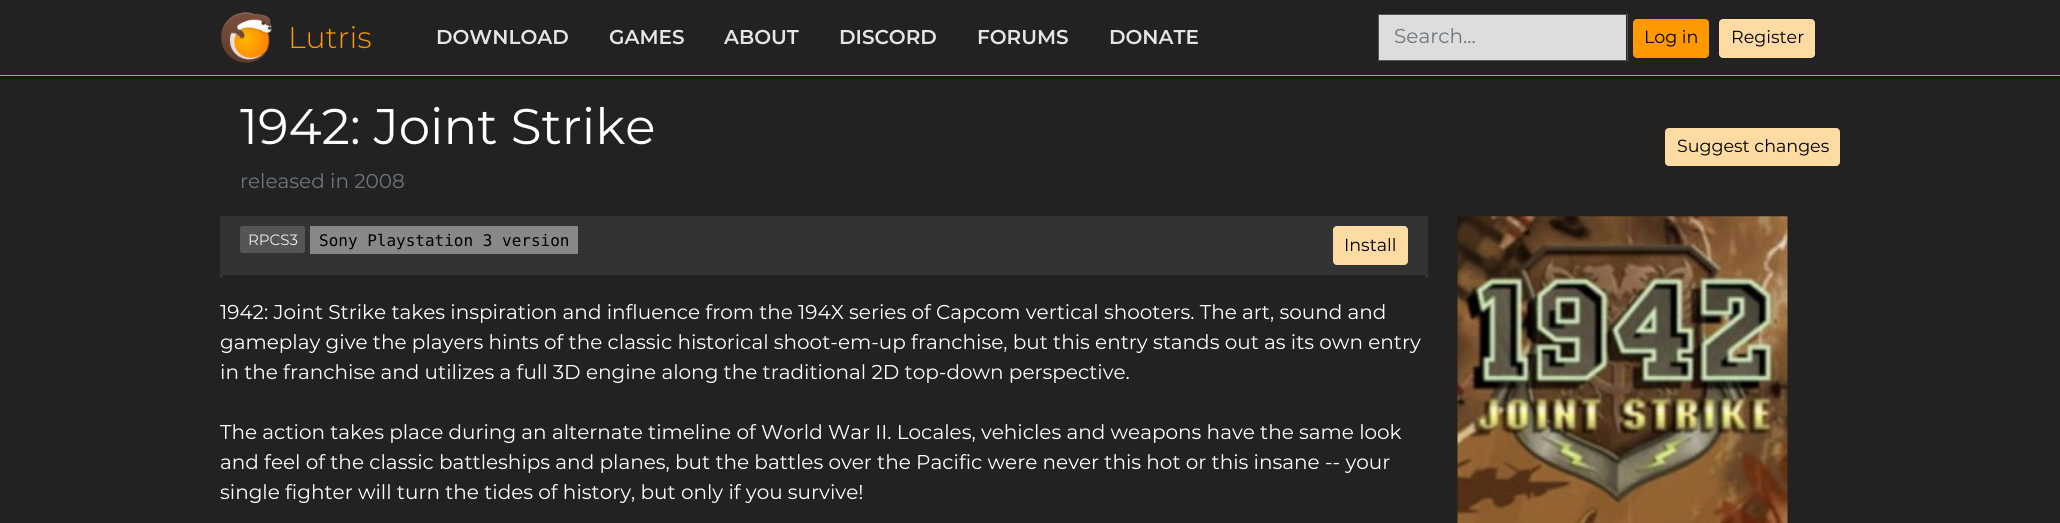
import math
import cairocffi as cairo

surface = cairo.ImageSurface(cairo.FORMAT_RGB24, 2060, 523)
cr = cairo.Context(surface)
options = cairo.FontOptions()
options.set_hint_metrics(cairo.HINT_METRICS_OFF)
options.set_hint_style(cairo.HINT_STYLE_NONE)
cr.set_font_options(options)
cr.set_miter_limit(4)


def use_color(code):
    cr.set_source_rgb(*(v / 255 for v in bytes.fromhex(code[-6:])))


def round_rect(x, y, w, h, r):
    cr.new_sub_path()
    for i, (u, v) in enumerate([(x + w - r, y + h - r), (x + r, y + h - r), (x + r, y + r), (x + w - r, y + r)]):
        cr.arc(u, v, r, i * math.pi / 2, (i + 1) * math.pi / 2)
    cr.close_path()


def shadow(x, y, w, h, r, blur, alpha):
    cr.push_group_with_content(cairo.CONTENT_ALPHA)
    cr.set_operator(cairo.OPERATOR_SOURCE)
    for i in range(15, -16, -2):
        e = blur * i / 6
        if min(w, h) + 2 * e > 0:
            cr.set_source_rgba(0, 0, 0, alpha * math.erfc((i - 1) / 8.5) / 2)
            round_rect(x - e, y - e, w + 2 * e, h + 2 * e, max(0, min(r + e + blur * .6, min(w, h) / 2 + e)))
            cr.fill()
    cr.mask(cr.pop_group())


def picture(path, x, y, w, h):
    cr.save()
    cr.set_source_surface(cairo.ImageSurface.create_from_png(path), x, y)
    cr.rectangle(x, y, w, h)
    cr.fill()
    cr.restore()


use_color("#222222")
cr.paint()
cr.save()
cr.rectangle(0, 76, 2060, 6)
cr.clip()
use_color("#000000")
shadow(0, 0, 2060, 76, 0, 3, 1)
cr.restore()
use_color("#ff9900")
cr.rectangle(0, 75, 2060, 1)
cr.fill()
picture("img1.png", 221, 12, 51, 51)
cr.select_font_face("Montserrat Light")
cr.set_font_size(30)
cr.move_to(288, 48)
cr.show_text("Lutris")
cr.select_font_face("Montserrat SemiBold")
cr.set_font_size(20)
use_color("#e5e5e5")
cr.move_to(436, 44)
cr.show_text("DOWNLOAD")
cr.move_to(609, 44)
cr.show_text("GAMES")
cr.move_to(724, 44)
cr.show_text("ABOUT")
cr.move_to(839, 44)
cr.show_text("DISCORD")
cr.move_to(977, 44)
cr.show_text("FORUMS")
cr.move_to(1109, 44)
cr.show_text("DONATE")
use_color("#dddddd")
cr.rectangle(1379, 15, 247, 45)
cr.fill()
cr.rectangle(1378.5, 14.5, 249, 46)
use_color("#555555")
cr.set_line_width(1)
cr.stroke()
cr.select_font_face("Montserrat")
use_color("#6c757d")
cr.move_to(1394, 43)
cr.show_text("Search...")
use_color("#ff9900")
round_rect(1633.5, 19.5, 75, 38, 3.5)
cr.fill_preserve()
cr.stroke()
cr.set_font_size(17.5)
use_color("#000000")
cr.move_to(1644, 43)
cr.show_text("Log in")
use_color("#ffdba4")
round_rect(1719.5, 19.5, 95, 38, 3.5)
cr.fill_preserve()
cr.stroke()
use_color("#000000")
cr.move_to(1731, 43)
cr.show_text("Register")
cr.set_font_size(50)
use_color("#ffffff")
cr.move_to(240, 144)
cr.show_text("1942: Joint Strike")
cr.set_font_size(20)
use_color("#6c757d")
cr.move_to(240, 188)
cr.show_text("released in 2008")
use_color("#ffdba4")
round_rect(1665.5, 128.5, 174, 37, 3.5)
cr.fill_preserve()
cr.stroke()
cr.set_font_size(17.5)
use_color("#000000")
cr.move_to(1677, 152)
cr.show_text("Suggest changes")
use_color("#333333")
cr.rectangle(220, 216, 1208, 62)
cr.fill()
use_color("#222222")
cr.rectangle(223, 275, 1202, 3)
cr.fill()
use_color("#555555")
round_rect(240, 226, 65, 27, 2.5)
cr.fill()
cr.set_font_size(15)
use_color("#ededed")
cr.move_to(248, 245)
cr.show_text("RPCS3")
use_color("#888888")
cr.rectangle(310, 226, 268, 28)
cr.fill()
cr.select_font_face("DejaVu Sans Mono")
cr.set_font_size(16)
use_color("#000000")
cr.move_to(319, 246)
cr.show_text("Sony Playstation 3 version")
use_color("#ffdba4")
round_rect(1333.5, 226.5, 74, 38, 3.5)
cr.fill_preserve()
cr.stroke()
cr.select_font_face("Montserrat")
cr.set_font_size(17.5)
use_color("#000000")
cr.move_to(1344, 251)
cr.show_text("Install")
cr.set_font_size(20)
use_color("#ffffff")
cr.move_to(220, 319)
cr.show_text("1942: Joint Strike takes inspiration and influence from the 194X series of Capcom vertical shooters. The art, sound and")
cr.move_to(220, 349)
cr.show_text("gameplay give the players hints of the classic historical shoot-em-up franchise, but this entry stands out as its own entry")
cr.move_to(220, 379)
cr.show_text("in the franchise and utilizes a full 3D engine along the traditional 2D top-down perspective.")
cr.move_to(220, 439)
cr.show_text("The action takes place during an alternate timeline of World War II. Locales, vehicles and weapons have the same look")
cr.move_to(220, 469)
cr.show_text("and feel of the classic battleships and planes, but the battles over the Pacific were never this hot or this insane -- your")
cr.move_to(220, 499)
cr.show_text("single fighter will turn the tides of history, but only if you survive!")
picture("img2.png", 1457, 216, 331, 307)
surface.write_to_png("result.png")
